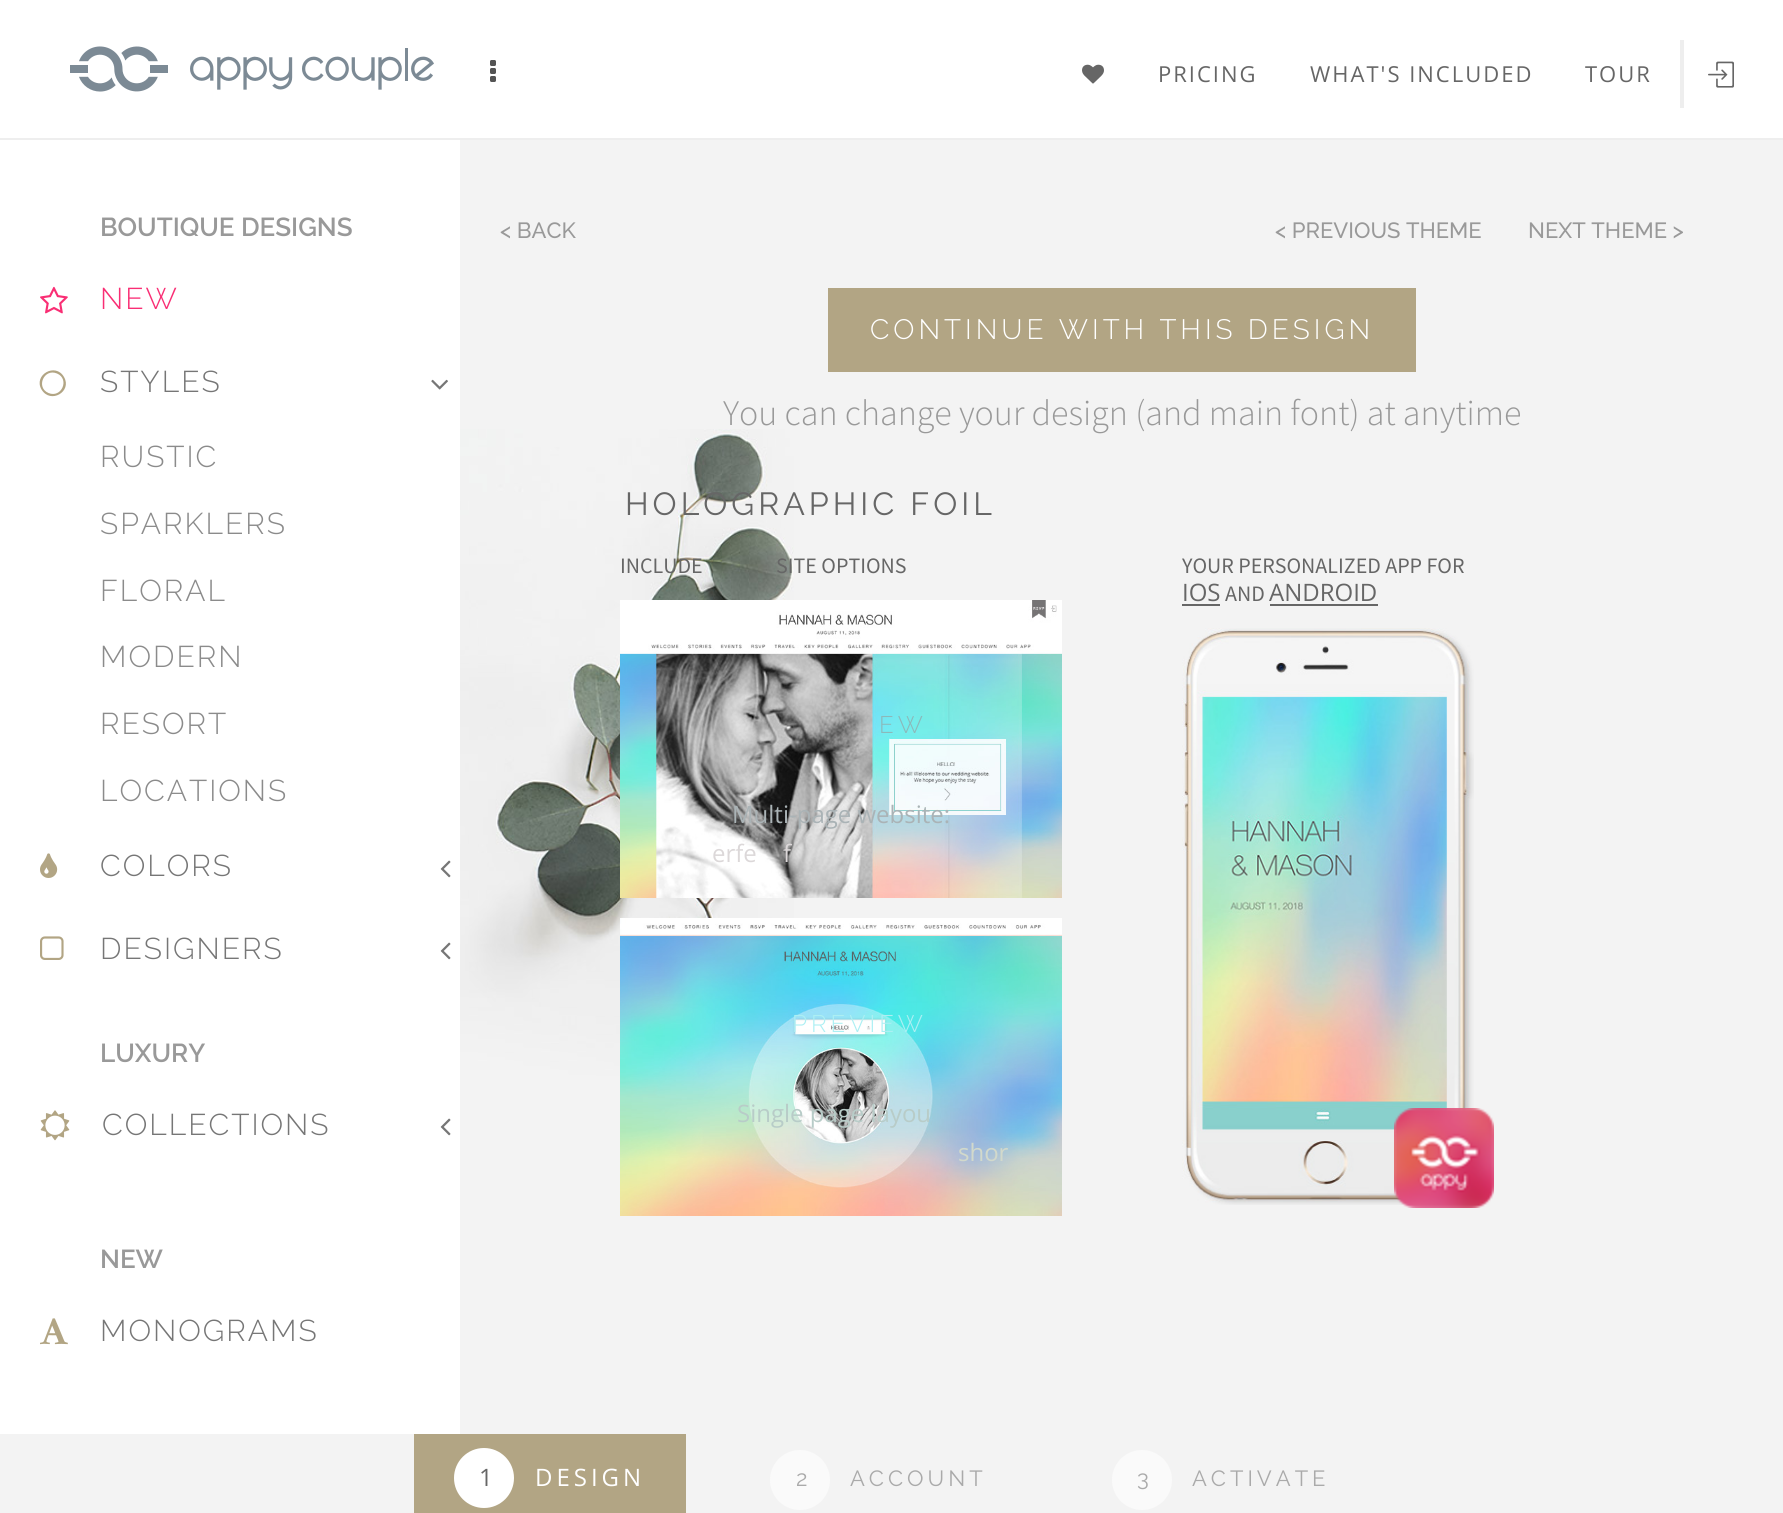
import math
import cairocffi as cairo

surface = cairo.ImageSurface(cairo.FORMAT_RGB24, 1783, 1513)
cr = cairo.Context(surface)
options = cairo.FontOptions()
options.set_hint_metrics(cairo.HINT_METRICS_OFF)
options.set_hint_style(cairo.HINT_STYLE_NONE)
cr.set_font_options(options)
cr.set_miter_limit(4)


def use_color(code):
    cr.set_source_rgb(*(v / 255 for v in bytes.fromhex(code[-6:])))


def spaced_text(x, y, s, letter, word):
    cr.move_to(x, y)
    for ch in s:
        cr.show_text(ch)
        cr.rel_move_to(letter + word * (ch == ' '), 0)


def picture(path, x, y, w, h):
    cr.save()
    cr.set_source_surface(cairo.ImageSurface.create_from_png(path), x, y)
    cr.rectangle(x, y, w, h)
    cr.fill()
    cr.restore()


use_color("#f3f3f3")
cr.paint()
use_color("#ffffff")
cr.rectangle(460, 0, 1323, 138)
cr.fill()
use_color("#eeeeee")
cr.rectangle(460, 138, 1323, 2)
cr.fill()
picture("img1.png", 490, 60, 6, 22)
picture("img2.png", 1082, 64, 22, 20)
cr.select_font_face("Open Sans")
cr.set_font_size(22)
use_color("#666666")
spaced_text(1158, 82, "PRICING", 2, 0)
spaced_text(1310, 82, "WHAT'S INCLUDED", 2, 0)
spaced_text(1585, 82, "TOUR", 2, 0)
use_color("#eeeeee")
cr.rectangle(1680, 40, 4, 68)
cr.fill()
picture("img3.png", 1708, 61, 26, 27)
use_color("#ffffff")
cr.rectangle(0, 0, 460, 1434)
cr.fill()
use_color("#eeeeee")
cr.rectangle(0, 138, 460, 2)
cr.fill()
picture("img4.png", 70, 46, 98, 46)
picture("img5.png", 190, 48, 244, 42)
cr.select_font_face("Raleway SemiBold")
cr.set_font_size(26)
use_color("#999999")
cr.move_to(100, 236)
cr.show_text("BOUTIQUE DESIGNS")
picture("img6.png", 40, 286, 28, 28)
cr.select_font_face("Raleway Light")
cr.set_font_size(30)
use_color("#f92e74")
spaced_text(100, 309, "NEW", 2, 0)
use_color("#b2a584")
cr.new_path()
cr.move_to(57, 373.5)
cr.curve_to(44, 368, 35.5, 387.5, 48.5, 393)
cr.curve_to(61.5, 398.5, 70, 379, 57, 373.5)
cr.close_path()
cr.move_to(64, 377)
cr.curve_to(72.5, 391.5, 50.5, 404.5, 41.5, 389.5)
cr.curve_to(33, 375, 55.5, 362, 64, 377)
cr.close_path()
cr.fill()
use_color("#767676")
spaced_text(100, 392, "STYLES", 2, 0)
picture("img7.png", 431, 379, 17, 11)
use_color("#8b8b8b")
spaced_text(100, 467, "RUSTIC", 2, 0)
spaced_text(100, 534, "SPARKLERS", 2, 0)
spaced_text(100, 601, "FLORAL", 2, 0)
spaced_text(100, 667, "MODERN", 2, 0)
spaced_text(100, 734, "RESORT", 2, 0)
spaced_text(100, 801, "LOCATIONS", 2, 0)
picture("img8.png", 40, 853, 18, 25)
use_color("#767676")
spaced_text(100, 876, "COLORS", 2, 0)
picture("img9.png", 440, 860, 11, 18)
picture("img10.png", 40, 936, 24, 24)
spaced_text(100, 959, "DESIGNERS", 2, 0)
picture("img9.png", 440, 942, 11, 18)
cr.select_font_face("Raleway SemiBold")
cr.set_font_size(26)
use_color("#999999")
cr.move_to(100, 1062)
cr.show_text("LUXURY")
picture("img11.png", 40, 1110, 30, 31)
cr.select_font_face("Raleway Light")
cr.set_font_size(30)
use_color("#767676")
spaced_text(102, 1135, "COLLECTIONS", 2, 0)
picture("img9.png", 440, 1118, 11, 18)
cr.select_font_face("Raleway SemiBold")
cr.set_font_size(26)
use_color("#999999")
cr.move_to(100, 1268)
cr.show_text("NEW")
picture("img12.png", 40, 1318, 28, 27)
cr.select_font_face("Raleway Light")
cr.set_font_size(30)
use_color("#767676")
spaced_text(100, 1341, "MONOGRAMS", 2, 0)
picture("img13.png", 460, 429, 334, 647)
cr.select_font_face("Raleway Medium")
cr.set_font_size(22)
use_color("#999999")
cr.move_to(500, 238)
cr.show_text("< BACK")
cr.move_to(1275, 238)
cr.show_text("< PREVIOUS THEME")
cr.move_to(1528, 238)
cr.show_text("NEXT THEME >")
use_color("#b2a584")
cr.rectangle(828, 288, 588, 84)
cr.fill()
cr.select_font_face("Raleway Light")
cr.set_font_size(28)
use_color("#ffffff")
spaced_text(870, 339, "CONTINUE WITH THIS DESIGN", 4, 0)
cr.select_font_face("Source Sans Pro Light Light")
cr.set_font_size(36)
use_color("#999999")
cr.move_to(723, 425)
cr.show_text("You can change your design (and main font) at anytime")
cr.select_font_face("Raleway")
cr.set_font_size(32)
use_color("#666666")
spaced_text(625, 515, "HOLOGRAPHIC FOIL", 4, 0)
cr.select_font_face("Source Sans Pro")
cr.set_font_size(22)
cr.move_to(620, 573)
cr.show_text("INCLUDE")
cr.move_to(776, 573)
cr.show_text("SITE OPTIONS")
picture("img14.png", 620, 600, 442, 298)
cr.select_font_face("Raleway Light")
cr.set_font_size(24)
use_color("#8bb9ba")
spaced_text(879, 733, "EW", 4, 0)
cr.select_font_face("Open Sans")
use_color("#aab3b6")
cr.move_to(732, 823)
cr.show_text("Multi-page website:")
use_color("#dcd8d9")
cr.move_to(712, 862)
cr.show_text("erfe")
cr.move_to(783, 862)
cr.show_text("f")
picture("img15.png", 620, 918, 442, 298)
cr.select_font_face("Raleway Light")
use_color("#aceff3")
spaced_text(792, 1032, "PREVIEW", 4, 0)
cr.select_font_face("Open Sans")
use_color("#b8ccc8")
cr.move_to(737, 1122)
cr.show_text("Single page layou")
use_color("#d2d9cb")
cr.move_to(958, 1161)
cr.show_text("shor")
cr.select_font_face("Source Sans Pro")
cr.set_font_size(22)
use_color("#666666")
cr.move_to(1182, 573)
cr.show_text("YOUR PERSONALIZED APP FOR")
cr.select_font_face("Open Sans")
cr.set_font_size(24)
cr.move_to(1182, 601)
cr.show_text("IOS")
cr.rectangle(1182, 604, 38, 2)
cr.fill()
cr.select_font_face("Source Sans Pro")
cr.set_font_size(22)
cr.move_to(1225, 601)
cr.show_text("AND")
cr.select_font_face("Open Sans")
cr.set_font_size(24)
cr.move_to(1269, 601)
cr.show_text("ANDROID")
cr.rectangle(1270, 604, 108, 2)
cr.fill()
picture("img16.png", 1182, 628, 292, 577)
picture("img17.png", 1394, 1108, 100, 100)
use_color("#b2a584")
cr.rectangle(414, 1434, 272, 79)
cr.fill()
use_color("#ffffff")
cr.arc(484, 1478, 30, 0, 2 * math.pi)
cr.fill()
use_color("#666666")
spaced_text(479, 1486, "1", 4, 0)
use_color("#ffffff")
spaced_text(535, 1486, "DESIGN", 4, 0)
use_color("#fafafa")
cr.new_path()
cr.arc(800, 1480, 30, 0, 2 * math.pi)
cr.fill()
cr.select_font_face("Raleway")
cr.set_font_size(22)
use_color("#aaaaaa")
spaced_text(796, 1486, "2", 4, 0)
spaced_text(850, 1486, "ACCOUNT", 4, 0)
use_color("#fafafa")
cr.new_path()
cr.arc(1142, 1480, 30, 0, 2 * math.pi)
cr.fill()
use_color("#aaaaaa")
spaced_text(1137, 1486, "3", 4, 0)
spaced_text(1192, 1486, "ACTIVATE", 4, 0)
surface.write_to_png("result.png")
